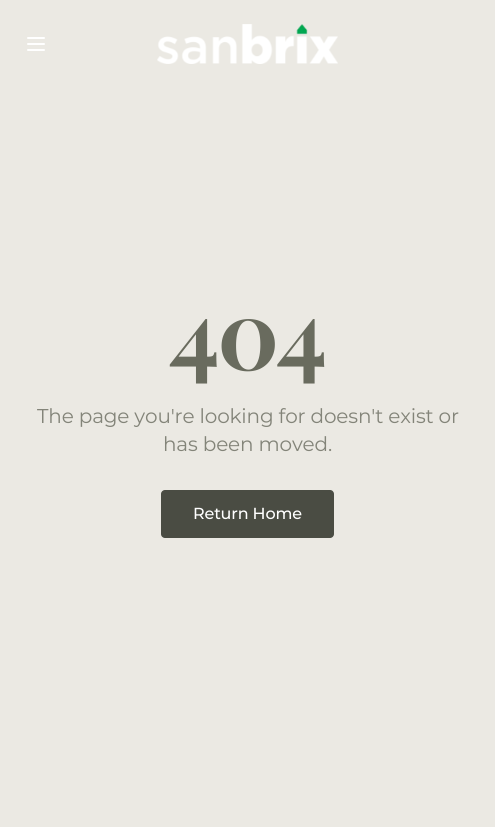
import math
import cairocffi as cairo

surface = cairo.ImageSurface(cairo.FORMAT_RGB24, 495, 827)
cr = cairo.Context(surface)
options = cairo.FontOptions()
options.set_hint_metrics(cairo.HINT_METRICS_OFF)
options.set_hint_style(cairo.HINT_STYLE_NONE)
cr.set_font_options(options)
cr.set_miter_limit(4)


def use_color(code):
    cr.set_source_rgb(*(v / 255 for v in bytes.fromhex(code[-6:])))


def spaced_text(x, y, s, letter, word):
    cr.move_to(x, y)
    for ch in s:
        cr.show_text(ch)
        cr.rel_move_to(letter + word * (ch == ' '), 0)


def round_rect(x, y, w, h, r):
    cr.new_sub_path()
    for i, (u, v) in enumerate([(x + w - r, y + h - r), (x + r, y + h - r), (x + r, y + r), (x + w - r, y + r)]):
        cr.arc(u, v, r, i * math.pi / 2, (i + 1) * math.pi / 2)
    cr.close_path()


def picture(path, x, y, w, h):
    cr.save()
    cr.set_source_surface(cairo.ImageSurface.create_from_png(path), x, y)
    cr.rectangle(x, y, w, h)
    cr.fill()
    cr.restore()


use_color("#ebe9e3")
cr.paint()
picture("img1.png", 27, 37, 18, 14)
picture("img2.png", 157, 24, 181, 40)
cr.select_font_face("Playfair Display", cairo.FONT_SLANT_NORMAL, cairo.FONT_WEIGHT_BOLD)
cr.set_font_size(96)
use_color("#696b5e")
spaced_text(169, 370, "404", -2.5, 0)
cr.select_font_face("Montserrat")
cr.set_font_size(20)
use_color("#838479")
spaced_text(37, 423, "The page you're looking for doesn't exist or", -0.15, 0)
spaced_text(163, 451, "has been moved.", -0.15, 0)
use_color("#4a4c43")
round_rect(161, 490, 173, 48, 4)
cr.fill()
cr.select_font_face("Montserrat Medium")
cr.set_font_size(16)
use_color("#ffffff")
spaced_text(193, 519, "Return Home", -0.15, 0)
surface.write_to_png("result.png")
